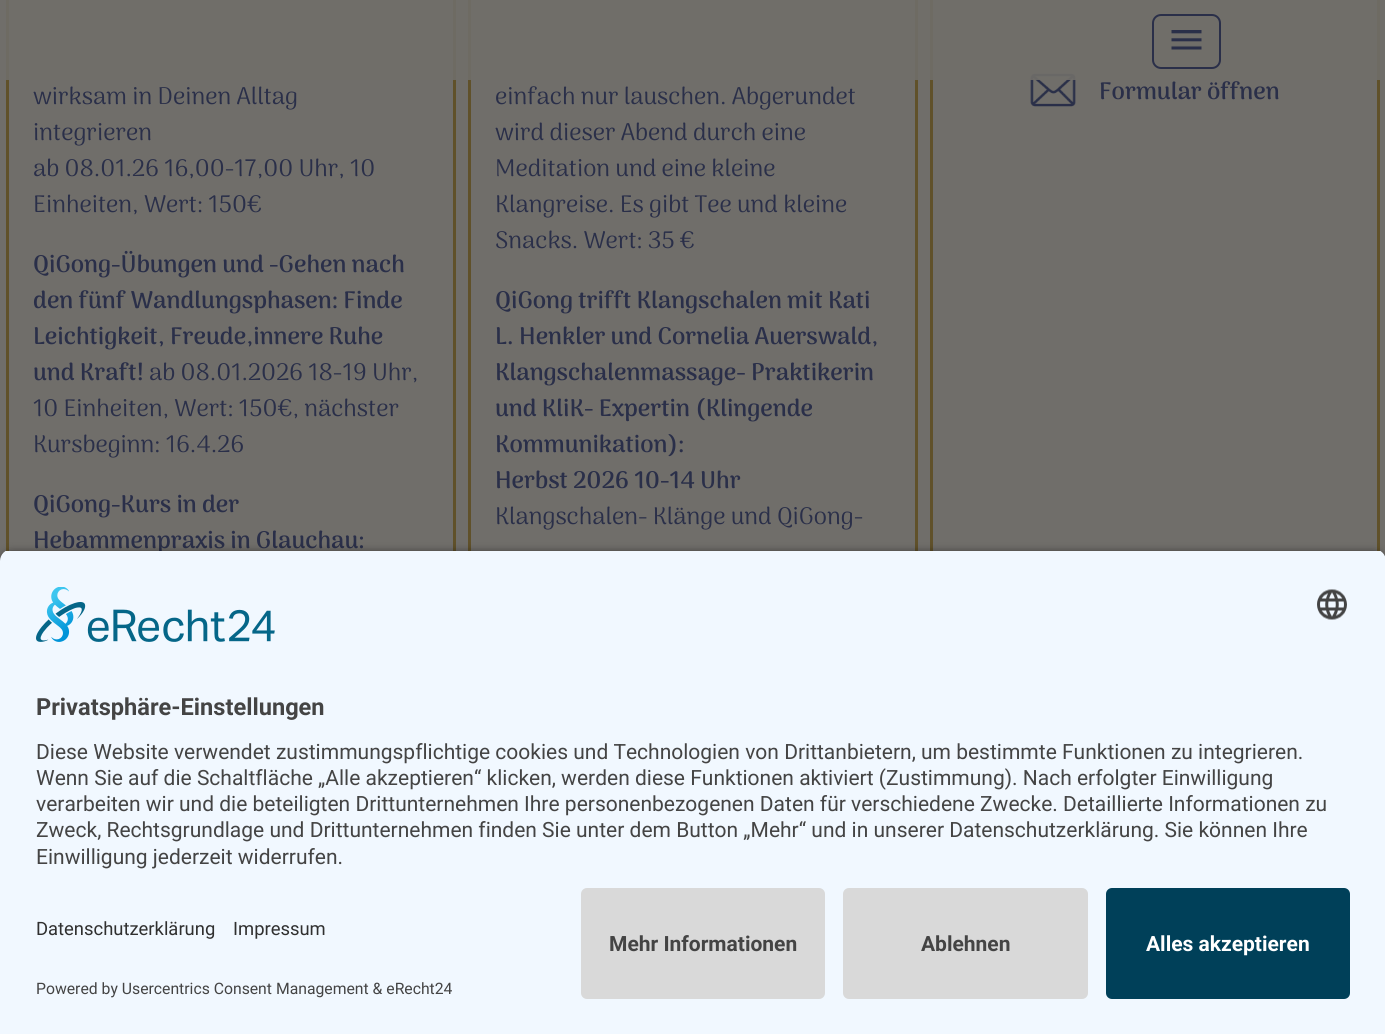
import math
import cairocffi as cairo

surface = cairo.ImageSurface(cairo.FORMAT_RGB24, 1385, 1034)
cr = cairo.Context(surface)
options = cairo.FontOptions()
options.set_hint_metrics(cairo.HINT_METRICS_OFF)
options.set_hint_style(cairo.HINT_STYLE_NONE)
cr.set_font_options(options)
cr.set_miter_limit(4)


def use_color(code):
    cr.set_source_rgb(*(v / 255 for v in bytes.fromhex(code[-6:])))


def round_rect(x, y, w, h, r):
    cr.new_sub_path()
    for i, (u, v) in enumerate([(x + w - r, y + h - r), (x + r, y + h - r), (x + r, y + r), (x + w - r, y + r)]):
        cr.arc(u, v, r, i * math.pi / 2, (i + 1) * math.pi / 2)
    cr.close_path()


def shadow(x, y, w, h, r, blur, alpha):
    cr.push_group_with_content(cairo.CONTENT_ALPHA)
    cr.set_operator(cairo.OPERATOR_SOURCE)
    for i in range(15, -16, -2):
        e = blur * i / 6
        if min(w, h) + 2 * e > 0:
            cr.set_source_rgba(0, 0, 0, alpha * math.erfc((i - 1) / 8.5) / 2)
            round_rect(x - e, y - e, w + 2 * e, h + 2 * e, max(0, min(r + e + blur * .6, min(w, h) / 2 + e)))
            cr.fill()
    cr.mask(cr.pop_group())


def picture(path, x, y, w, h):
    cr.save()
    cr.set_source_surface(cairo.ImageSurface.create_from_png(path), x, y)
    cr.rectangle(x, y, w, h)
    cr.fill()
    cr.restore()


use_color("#706e6a")
cr.paint()
cr.rectangle(7.5, -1.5, 447, 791)
use_color("#60512a")
cr.set_line_width(3)
cr.stroke()
cr.rectangle(469.5, -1.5, 447, 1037)
cr.stroke()
cr.rectangle(931.5, -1.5, 447, 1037)
cr.stroke()
picture("img2.png", 1030, 73, 46, 34)
cr.set_source_rgba(0.439, 0.431, 0.416, 0.9)
cr.rectangle(6, 0, 1374, 80)
cr.fill()
round_rect(1153, 15, 67, 53, 8)
use_color("#2a2f49")
cr.set_line_width(2)
cr.stroke()
picture("img1.png", 1171, 30, 31, 20)
cr.select_font_face("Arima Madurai")
cr.set_font_size(24)
cr.move_to(33, 104)
cr.show_text("wirksam in Deinen Alltag")
cr.move_to(33, 140)
cr.show_text("integrieren")
cr.move_to(33, 176)
cr.show_text("ab 08.01.26 16,00-17,00 Uhr, 10")
cr.move_to(33, 212)
cr.show_text("Einheiten, Wert: 150€")
cr.select_font_face("Arima Madurai", cairo.FONT_SLANT_NORMAL, cairo.FONT_WEIGHT_BOLD)
cr.move_to(33, 272)
cr.show_text("QiGong-Übungen und -Gehen nach")
cr.move_to(33, 308)
cr.show_text("den fünf Wandlungsphasen: Finde")
cr.move_to(33, 344)
cr.show_text("Leichtigkeit, Freude,innere Ruhe")
cr.move_to(33, 380)
cr.show_text("und Kraft!")
cr.select_font_face("Arima Madurai")
cr.move_to(149, 380)
cr.show_text("ab 08.01.2026 18-19 Uhr,")
cr.move_to(33, 416)
cr.show_text("10 Einheiten, Wert: 150€, nächster")
cr.move_to(33, 452)
cr.show_text("Kursbeginn: 16.4.26")
cr.select_font_face("Arima Madurai", cairo.FONT_SLANT_NORMAL, cairo.FONT_WEIGHT_BOLD)
cr.move_to(33, 512)
cr.show_text("QiGong-Kurs in der")
cr.move_to(33, 548)
cr.show_text("Hebammenpraxis in Glauchau:")
cr.select_font_face("Arima Madurai")
cr.move_to(495, 104)
cr.show_text("einfach nur lauschen. Abgerundet")
cr.move_to(495, 140)
cr.show_text("wird dieser Abend durch eine")
cr.move_to(495, 176)
cr.show_text("Meditation und eine kleine")
cr.move_to(495, 212)
cr.show_text("Klangreise. Es gibt Tee und kleine")
cr.move_to(495, 248)
cr.show_text("Snacks. Wert: 35 €")
cr.select_font_face("Arima Madurai", cairo.FONT_SLANT_NORMAL, cairo.FONT_WEIGHT_BOLD)
cr.move_to(495, 308)
cr.show_text("QiGong trifft Klangschalen mit Kati")
cr.move_to(495, 344)
cr.show_text("L. Henkler und Cornelia Auerswald,")
cr.move_to(495, 380)
cr.show_text("Klangschalenmassage- Praktikerin")
cr.move_to(495, 416)
cr.show_text("und KliK- Expertin (Klingende")
cr.move_to(495, 452)
cr.show_text("Kommunikation):")
cr.move_to(495, 488)
cr.show_text("Herbst 2026 10-14 Uhr")
cr.select_font_face("Arima Madurai")
cr.move_to(495, 524)
cr.show_text("Klangschalen- Klänge und QiGong-")
cr.select_font_face("Arima Madurai", cairo.FONT_SLANT_NORMAL, cairo.FONT_WEIGHT_BOLD)
cr.move_to(1099, 99)
cr.show_text("Formular öffnen")
use_color("#000000")
shadow(0, 554, 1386, 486, 12, 5, 0.8)
cr.save()
cr.new_path()
cr.move_to(12, 549)
cr.line_to(1374, 549)
cr.curve_to(1380.5, 549, 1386, 554.5, 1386, 561)
cr.line_to(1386, 876)
cr.line_to(0, 876)
cr.line_to(0, 561)
cr.curve_to(0, 554.5, 5.5, 549, 12, 549)
cr.close_path()
cr.clip()
use_color("#f1f8ff")
cr.rectangle(0, 551, 1385, 325)
cr.fill()
cr.restore()
picture("img3.png", 36, 587, 239, 55)
picture("img4.png", 1317, 589, 30, 31)
cr.select_font_face("Roboto", cairo.FONT_SLANT_NORMAL, cairo.FONT_WEIGHT_BOLD)
cr.set_font_size(23.6)
use_color("#444444")
cr.move_to(36, 715)
cr.show_text("Privatsphäre-Einstellungen")
cr.select_font_face("Roboto")
cr.set_font_size(21)
cr.move_to(36, 759)
cr.show_text("Diese Website verwendet zustimmungspflichtige cookies und Technologien von Drittanbietern, um bestimmte Funktionen zu integrieren.")
cr.move_to(36, 785)
cr.show_text("Wenn Sie auf die Schaltfläche „Alle akzeptieren“ klicken, werden diese Funktionen aktiviert (Zustimmung). Nach erfolgter Einwilligung")
cr.move_to(36, 811)
cr.show_text("verarbeiten wir und die beteiligten Drittunternehmen Ihre personenbezogenen Daten für verschiedene Zwecke. Detaillierte Informationen zu")
cr.move_to(36, 837)
cr.show_text("Zweck, Rechtsgrundlage und Drittunternehmen finden Sie unter dem Button „Mehr“ und in unserer Datenschutzerklärung. Sie können Ihre")
cr.move_to(36, 864)
cr.show_text("Einwilligung jederzeit widerrufen.")
use_color("#f1f8ff")
cr.rectangle(0, 876, 1385, 158)
cr.fill()
cr.set_font_size(18.4)
use_color("#303030")
cr.move_to(36, 935)
cr.show_text("Datenschutzerklärung")
cr.move_to(233, 935)
cr.show_text("Impressum")
cr.set_font_size(15.75)
use_color("#444444")
cr.move_to(36, 994)
cr.show_text("Powered by Usercentrics Consent Management & eRecht24")
use_color("#d9d9d9")
round_rect(581, 888, 244, 111, 6)
cr.fill()
cr.select_font_face("Roboto", cairo.FONT_SLANT_NORMAL, cairo.FONT_WEIGHT_BOLD)
cr.set_font_size(21)
use_color("#444444")
cr.move_to(609, 951)
cr.show_text("Mehr Informationen")
use_color("#d9d9d9")
round_rect(843, 888, 245, 111, 6)
cr.fill()
use_color("#444444")
cr.move_to(921, 951)
cr.show_text("Ablehnen")
use_color("#004059")
round_rect(1106, 888, 244, 111, 6)
cr.fill()
use_color("#ffffff")
cr.move_to(1146, 951)
cr.show_text("Alles akzeptieren")
surface.write_to_png("result.png")
